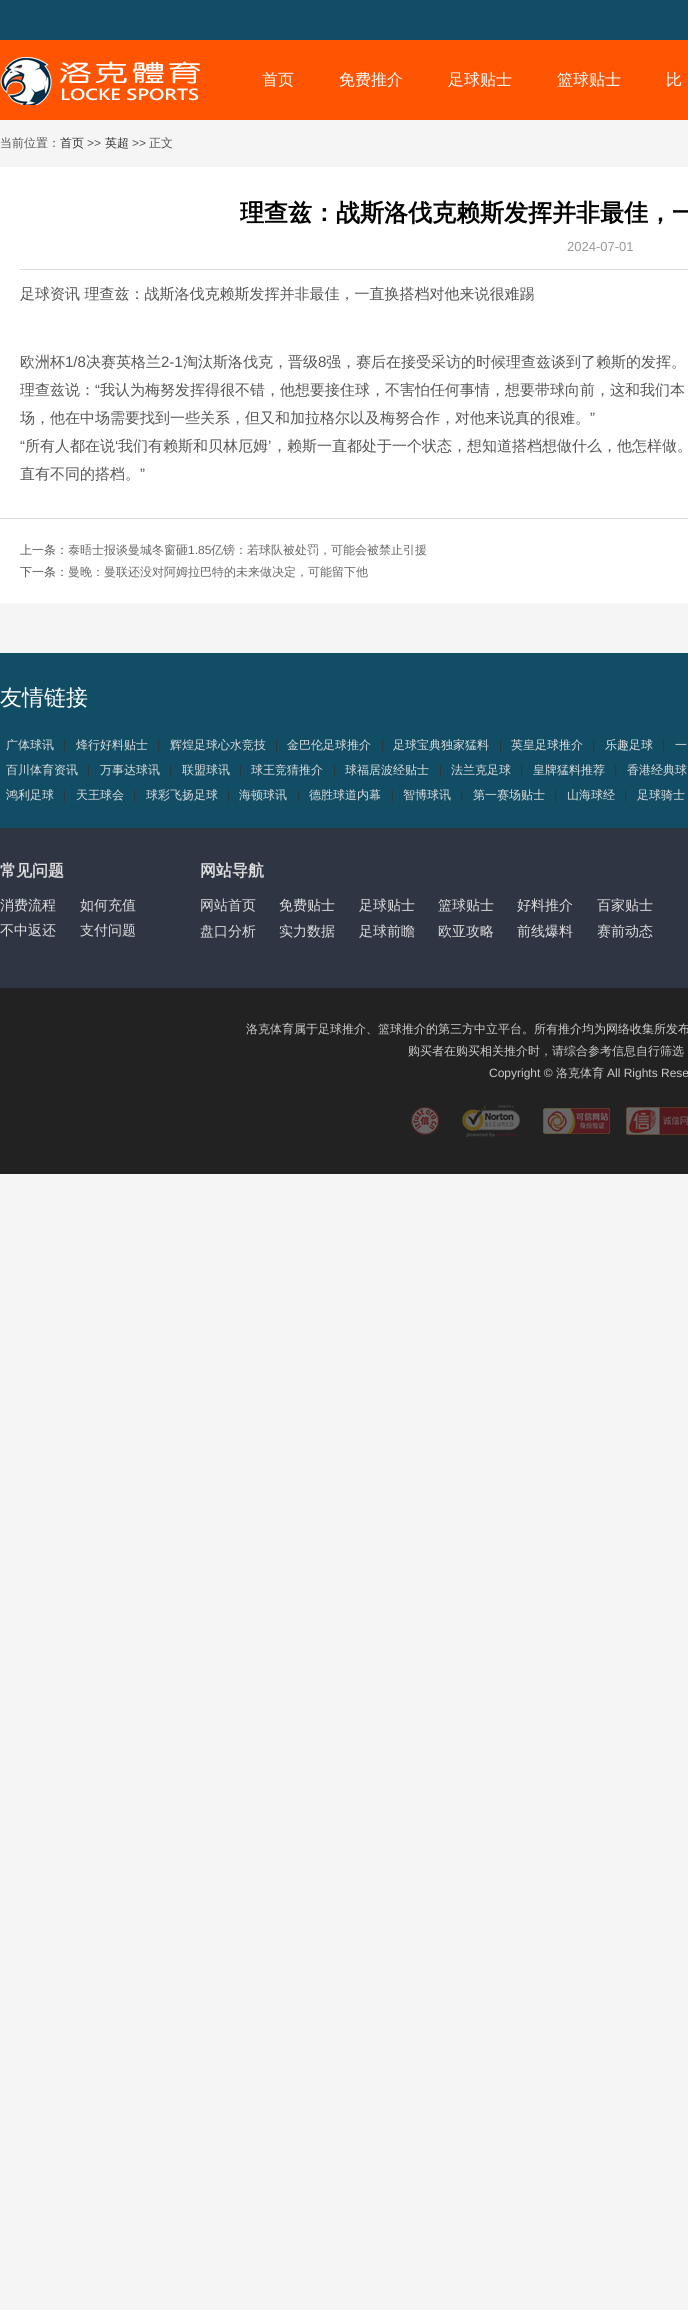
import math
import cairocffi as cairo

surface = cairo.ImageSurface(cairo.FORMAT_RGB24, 688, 2310)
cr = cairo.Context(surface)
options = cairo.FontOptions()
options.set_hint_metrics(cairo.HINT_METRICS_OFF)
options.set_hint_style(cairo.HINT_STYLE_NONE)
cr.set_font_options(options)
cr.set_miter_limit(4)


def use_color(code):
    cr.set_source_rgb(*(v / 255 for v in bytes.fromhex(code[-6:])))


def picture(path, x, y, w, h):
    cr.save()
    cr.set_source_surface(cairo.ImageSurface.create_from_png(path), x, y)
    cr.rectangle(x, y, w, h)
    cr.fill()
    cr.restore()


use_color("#f5f5f5")
cr.paint()
use_color("#114e66")
cr.rectangle(0, 0, 688, 40)
cr.fill()
use_color("#ff5402")
cr.rectangle(0, 40, 688, 80)
cr.fill()
picture("img1.png", 0, 57, 200, 48)
cr.select_font_face("WenQuanYi Zen Hei Medium")
cr.set_font_size(16)
use_color("#ffffff")
cr.move_to(262, 85)
cr.show_text("首页")
cr.move_to(339, 85)
cr.show_text("免费推介")
cr.move_to(448, 85)
cr.show_text("足球贴士")
cr.move_to(557, 85)
cr.show_text("篮球贴士")
cr.move_to(666, 85)
cr.show_text("比")
cr.set_font_size(12)
use_color("#555555")
cr.move_to(0, 147)
cr.show_text("当前位置：")
use_color("#333333")
cr.move_to(60, 147)
cr.show_text("首页")
cr.select_font_face("Liberation Sans")
use_color("#555555")
cr.move_to(87, 147)
cr.show_text(">>")
cr.select_font_face("WenQuanYi Zen Hei Medium")
use_color("#333333")
cr.move_to(105, 147)
cr.show_text("英超")
cr.select_font_face("Liberation Sans")
use_color("#555555")
cr.move_to(132, 147)
cr.show_text(">>")
cr.select_font_face("WenQuanYi Zen Hei Medium")
cr.move_to(149, 147)
cr.show_text("正文")
use_color("#ffffff")
cr.rectangle(0, 167, 688, 351)
cr.fill()
cr.select_font_face("WenQuanYi Zen Hei", cairo.FONT_SLANT_NORMAL, cairo.FONT_WEIGHT_BOLD)
cr.set_font_size(24)
use_color("#000000")
cr.move_to(240, 221)
cr.show_text("理查兹：战斯洛伐克赖斯发挥并非最佳，一")
use_color("#dddddd")
cr.rectangle(20, 269, 668, 1)
cr.fill()
cr.select_font_face("Liberation Sans")
cr.set_font_size(13)
use_color("#999999")
cr.move_to(567, 251)
cr.show_text("2024-07-01")
cr.select_font_face("WenQuanYi Zen Hei Medium")
cr.set_font_size(15)
use_color("#555555")
cr.move_to(20, 299)
cr.show_text("足球资讯 理查兹：战斯洛伐克赖斯发挥并非最佳，一直换搭档对他来说很难踢")
cr.move_to(20, 367)
cr.show_text("欧洲杯")
cr.select_font_face("Liberation Sans")
cr.move_to(65, 367)
cr.show_text("1/8")
cr.select_font_face("WenQuanYi Zen Hei Medium")
cr.move_to(86, 367)
cr.show_text("决赛英格兰")
cr.select_font_face("Liberation Sans")
cr.move_to(161, 367)
cr.show_text("2-1")
cr.select_font_face("WenQuanYi Zen Hei Medium")
cr.move_to(183, 367)
cr.show_text("淘汰斯洛伐克，晋级")
cr.select_font_face("Liberation Sans")
cr.move_to(318, 367)
cr.show_text("8")
cr.select_font_face("WenQuanYi Zen Hei Medium")
cr.move_to(326, 367)
cr.show_text("强，赛后在接受采访的时候理查兹谈到了赖斯的发挥。")
cr.move_to(20, 395)
cr.show_text("理查兹说：")
cr.select_font_face("Liberation Sans")
cr.move_to(95, 395)
cr.show_text("“")
cr.select_font_face("WenQuanYi Zen Hei Medium")
cr.move_to(100, 395)
cr.show_text("我认为梅努发挥得很不错，他想要接住球，不害怕任何事情，想要带球向前，这和我们本")
cr.move_to(20, 423)
cr.show_text("场，他在中场需要找到一些关系，但又和加拉格尔以及梅努合作，对他来说真的很难。")
cr.select_font_face("Liberation Sans")
cr.move_to(590, 423)
cr.show_text("”")
cr.move_to(20, 451)
cr.show_text("“")
cr.select_font_face("WenQuanYi Zen Hei Medium")
cr.move_to(25, 451)
cr.show_text("所有人都在说")
cr.select_font_face("Liberation Sans")
cr.move_to(115, 451)
cr.show_text("‘")
cr.select_font_face("WenQuanYi Zen Hei Medium")
cr.move_to(118, 451)
cr.show_text("我们有赖斯和贝林厄姆")
cr.select_font_face("Liberation Sans")
cr.move_to(268, 451)
cr.show_text("’")
cr.select_font_face("WenQuanYi Zen Hei Medium")
cr.move_to(272, 451)
cr.show_text("，赖斯一直都处于一个状态，想知道搭档想做什么，他怎样做。")
cr.move_to(20, 479)
cr.show_text("直有不同的搭档。")
cr.select_font_face("Liberation Sans")
cr.move_to(140, 479)
cr.show_text("”")
use_color("#ffffff")
cr.rectangle(0, 519, 688, 84)
cr.fill()
use_color("#dddddd")
cr.rectangle(0, 518, 688, 1)
cr.fill()
cr.select_font_face("WenQuanYi Zen Hei Medium")
cr.set_font_size(12)
use_color("#555555")
cr.move_to(20, 554)
cr.show_text("上一条：")
use_color("#666666")
cr.move_to(68, 554)
cr.show_text("泰晤士报谈曼城冬窗砸")
cr.select_font_face("Liberation Sans")
cr.move_to(188, 554)
cr.show_text("1.85")
cr.select_font_face("WenQuanYi Zen Hei Medium")
cr.move_to(211, 554)
cr.show_text("亿镑：若球队被处罚，可能会被禁止引援")
use_color("#555555")
cr.move_to(20, 576)
cr.show_text("下一条：")
use_color("#666666")
cr.move_to(68, 576)
cr.show_text("曼晚：曼联还没对阿姆拉巴特的未来做决定，可能留下他")
use_color("#114e66")
cr.rectangle(0, 653, 688, 175)
cr.fill()
cr.set_font_size(22)
use_color("#ffffff")
cr.move_to(0, 705)
cr.show_text("友情链接")
cr.set_font_size(12)
use_color("#dddddd")
cr.move_to(6, 749)
cr.show_text("广体球讯")
cr.select_font_face("Liberation Sans", cairo.FONT_SLANT_ITALIC)
use_color("#333333")
cr.move_to(63, 749)
cr.show_text("|")
cr.select_font_face("WenQuanYi Zen Hei Medium")
use_color("#dddddd")
cr.move_to(76, 749)
cr.show_text("烽行好料贴士")
cr.select_font_face("Liberation Sans", cairo.FONT_SLANT_ITALIC)
use_color("#333333")
cr.move_to(157, 749)
cr.show_text("|")
cr.select_font_face("WenQuanYi Zen Hei Medium")
use_color("#dddddd")
cr.move_to(170, 749)
cr.show_text("辉煌足球心水竞技")
cr.select_font_face("Liberation Sans", cairo.FONT_SLANT_ITALIC)
use_color("#333333")
cr.move_to(275, 749)
cr.show_text("|")
cr.select_font_face("WenQuanYi Zen Hei Medium")
use_color("#dddddd")
cr.move_to(287, 749)
cr.show_text("金巴伦足球推介")
cr.select_font_face("Liberation Sans", cairo.FONT_SLANT_ITALIC)
use_color("#333333")
cr.move_to(381, 749)
cr.show_text("|")
cr.select_font_face("WenQuanYi Zen Hei Medium")
use_color("#dddddd")
cr.move_to(393, 749)
cr.show_text("足球宝典独家猛料")
cr.select_font_face("Liberation Sans", cairo.FONT_SLANT_ITALIC)
use_color("#333333")
cr.move_to(499, 749)
cr.show_text("|")
cr.select_font_face("WenQuanYi Zen Hei Medium")
use_color("#dddddd")
cr.move_to(511, 749)
cr.show_text("英皇足球推介")
cr.select_font_face("Liberation Sans", cairo.FONT_SLANT_ITALIC)
use_color("#333333")
cr.move_to(592, 749)
cr.show_text("|")
cr.select_font_face("WenQuanYi Zen Hei Medium")
use_color("#dddddd")
cr.move_to(605, 749)
cr.show_text("乐趣足球")
cr.select_font_face("Liberation Sans", cairo.FONT_SLANT_ITALIC)
use_color("#333333")
cr.move_to(662, 749)
cr.show_text("|")
cr.select_font_face("WenQuanYi Zen Hei Medium")
use_color("#dddddd")
cr.move_to(675, 749)
cr.show_text("一")
cr.move_to(6, 774)
cr.show_text("百川体育资讯")
cr.select_font_face("Liberation Sans", cairo.FONT_SLANT_ITALIC)
use_color("#333333")
cr.move_to(87, 774)
cr.show_text("|")
cr.select_font_face("WenQuanYi Zen Hei Medium")
use_color("#dddddd")
cr.move_to(100, 774)
cr.show_text("万事达球讯")
cr.select_font_face("Liberation Sans", cairo.FONT_SLANT_ITALIC)
use_color("#333333")
cr.move_to(169, 774)
cr.show_text("|")
cr.select_font_face("WenQuanYi Zen Hei Medium")
use_color("#dddddd")
cr.move_to(182, 774)
cr.show_text("联盟球讯")
cr.select_font_face("Liberation Sans", cairo.FONT_SLANT_ITALIC)
use_color("#333333")
cr.move_to(239, 774)
cr.show_text("|")
cr.select_font_face("WenQuanYi Zen Hei Medium")
use_color("#dddddd")
cr.move_to(251, 774)
cr.show_text("球王竞猜推介")
cr.select_font_face("Liberation Sans", cairo.FONT_SLANT_ITALIC)
use_color("#333333")
cr.move_to(333, 774)
cr.show_text("|")
cr.select_font_face("WenQuanYi Zen Hei Medium")
use_color("#dddddd")
cr.move_to(345, 774)
cr.show_text("球福居波经贴士")
cr.select_font_face("Liberation Sans", cairo.FONT_SLANT_ITALIC)
use_color("#333333")
cr.move_to(439, 774)
cr.show_text("|")
cr.select_font_face("WenQuanYi Zen Hei Medium")
use_color("#dddddd")
cr.move_to(451, 774)
cr.show_text("法兰克足球")
cr.select_font_face("Liberation Sans", cairo.FONT_SLANT_ITALIC)
use_color("#333333")
cr.move_to(520, 774)
cr.show_text("|")
cr.select_font_face("WenQuanYi Zen Hei Medium")
use_color("#dddddd")
cr.move_to(533, 774)
cr.show_text("皇牌猛料推荐")
cr.select_font_face("Liberation Sans", cairo.FONT_SLANT_ITALIC)
use_color("#333333")
cr.move_to(614, 774)
cr.show_text("|")
cr.select_font_face("WenQuanYi Zen Hei Medium")
use_color("#dddddd")
cr.move_to(627, 774)
cr.show_text("香港经典球")
cr.move_to(6, 799)
cr.show_text("鸿利足球")
cr.select_font_face("Liberation Sans", cairo.FONT_SLANT_ITALIC)
use_color("#333333")
cr.move_to(63, 799)
cr.show_text("|")
cr.select_font_face("WenQuanYi Zen Hei Medium")
use_color("#dddddd")
cr.move_to(76, 799)
cr.show_text("天王球会")
cr.select_font_face("Liberation Sans", cairo.FONT_SLANT_ITALIC)
use_color("#333333")
cr.move_to(133, 799)
cr.show_text("|")
cr.select_font_face("WenQuanYi Zen Hei Medium")
use_color("#dddddd")
cr.move_to(146, 799)
cr.show_text("球彩飞扬足球")
cr.select_font_face("Liberation Sans", cairo.FONT_SLANT_ITALIC)
use_color("#333333")
cr.move_to(227, 799)
cr.show_text("|")
cr.select_font_face("WenQuanYi Zen Hei Medium")
use_color("#dddddd")
cr.move_to(239, 799)
cr.show_text("海顿球讯")
cr.select_font_face("Liberation Sans", cairo.FONT_SLANT_ITALIC)
use_color("#333333")
cr.move_to(297, 799)
cr.show_text("|")
cr.select_font_face("WenQuanYi Zen Hei Medium")
use_color("#dddddd")
cr.move_to(309, 799)
cr.show_text("德胜球道内幕")
cr.select_font_face("Liberation Sans", cairo.FONT_SLANT_ITALIC)
use_color("#333333")
cr.move_to(391, 799)
cr.show_text("|")
cr.select_font_face("WenQuanYi Zen Hei Medium")
use_color("#dddddd")
cr.move_to(403, 799)
cr.show_text("智博球讯")
cr.select_font_face("Liberation Sans", cairo.FONT_SLANT_ITALIC)
use_color("#333333")
cr.move_to(460, 799)
cr.show_text("|")
cr.select_font_face("WenQuanYi Zen Hei Medium")
use_color("#dddddd")
cr.move_to(473, 799)
cr.show_text("第一赛场贴士")
cr.select_font_face("Liberation Sans", cairo.FONT_SLANT_ITALIC)
use_color("#333333")
cr.move_to(554, 799)
cr.show_text("|")
cr.select_font_face("WenQuanYi Zen Hei Medium")
use_color("#dddddd")
cr.move_to(567, 799)
cr.show_text("山海球经")
cr.select_font_face("Liberation Sans", cairo.FONT_SLANT_ITALIC)
use_color("#333333")
cr.move_to(624, 799)
cr.show_text("|")
cr.select_font_face("WenQuanYi Zen Hei Medium")
use_color("#dddddd")
cr.move_to(637, 799)
cr.show_text("足球骑士")
use_color("#2f3543")
cr.rectangle(0, 828, 688, 160)
cr.fill()
cr.select_font_face("WenQuanYi Zen Hei", cairo.FONT_SLANT_NORMAL, cairo.FONT_WEIGHT_BOLD)
cr.set_font_size(16)
use_color("#dddddd")
cr.move_to(0, 876)
cr.show_text("常见问题")
cr.select_font_face("WenQuanYi Zen Hei Medium")
cr.set_font_size(14)
cr.move_to(0, 910)
cr.show_text("消费流程")
cr.move_to(80, 910)
cr.show_text("如何充值")
cr.move_to(0, 935)
cr.show_text("不中返还")
cr.move_to(80, 935)
cr.show_text("支付问题")
cr.select_font_face("WenQuanYi Zen Hei", cairo.FONT_SLANT_NORMAL, cairo.FONT_WEIGHT_BOLD)
cr.set_font_size(16)
cr.move_to(200, 876)
cr.show_text("网站导航")
cr.select_font_face("WenQuanYi Zen Hei Medium")
cr.set_font_size(14)
cr.move_to(200, 910)
cr.show_text("网站首页")
cr.move_to(279, 910)
cr.show_text("免费贴士")
cr.move_to(359, 910)
cr.show_text("足球贴士")
cr.move_to(438, 910)
cr.show_text("篮球贴士")
cr.move_to(517, 910)
cr.show_text("好料推介")
cr.move_to(597, 910)
cr.show_text("百家贴士")
cr.move_to(200, 936)
cr.show_text("盘口分析")
cr.move_to(279, 936)
cr.show_text("实力数据")
cr.move_to(359, 936)
cr.show_text("足球前瞻")
cr.move_to(438, 936)
cr.show_text("欧亚攻略")
cr.move_to(517, 936)
cr.show_text("前线爆料")
cr.move_to(597, 936)
cr.show_text("赛前动态")
use_color("#222222")
cr.rectangle(0, 988, 688, 186)
cr.fill()
cr.set_font_size(12)
use_color("#cccccc")
cr.move_to(246, 1033)
cr.show_text("洛克体育属于足球推介、篮球推介的第三方中立平台。所有推介均为网络收集所发布")
cr.move_to(408, 1055)
cr.show_text("购买者在购买相关推介时，请综合参考信息自行筛选")
cr.select_font_face("Liberation Sans")
cr.move_to(489, 1077)
cr.show_text("Copyright ©")
cr.select_font_face("WenQuanYi Zen Hei Medium")
cr.move_to(556, 1077)
cr.show_text("洛克体育")
cr.select_font_face("Liberation Sans")
cr.move_to(607, 1077)
cr.show_text("All Rights Rese")
picture("img2.png", 411, 1107, 28, 28)
picture("img3.png", 462, 1105, 58, 32)
picture("img4.png", 543, 1108, 67, 26)
picture("img5.png", 626, 1107, 62, 28)
surface.write_to_png("result.png")
